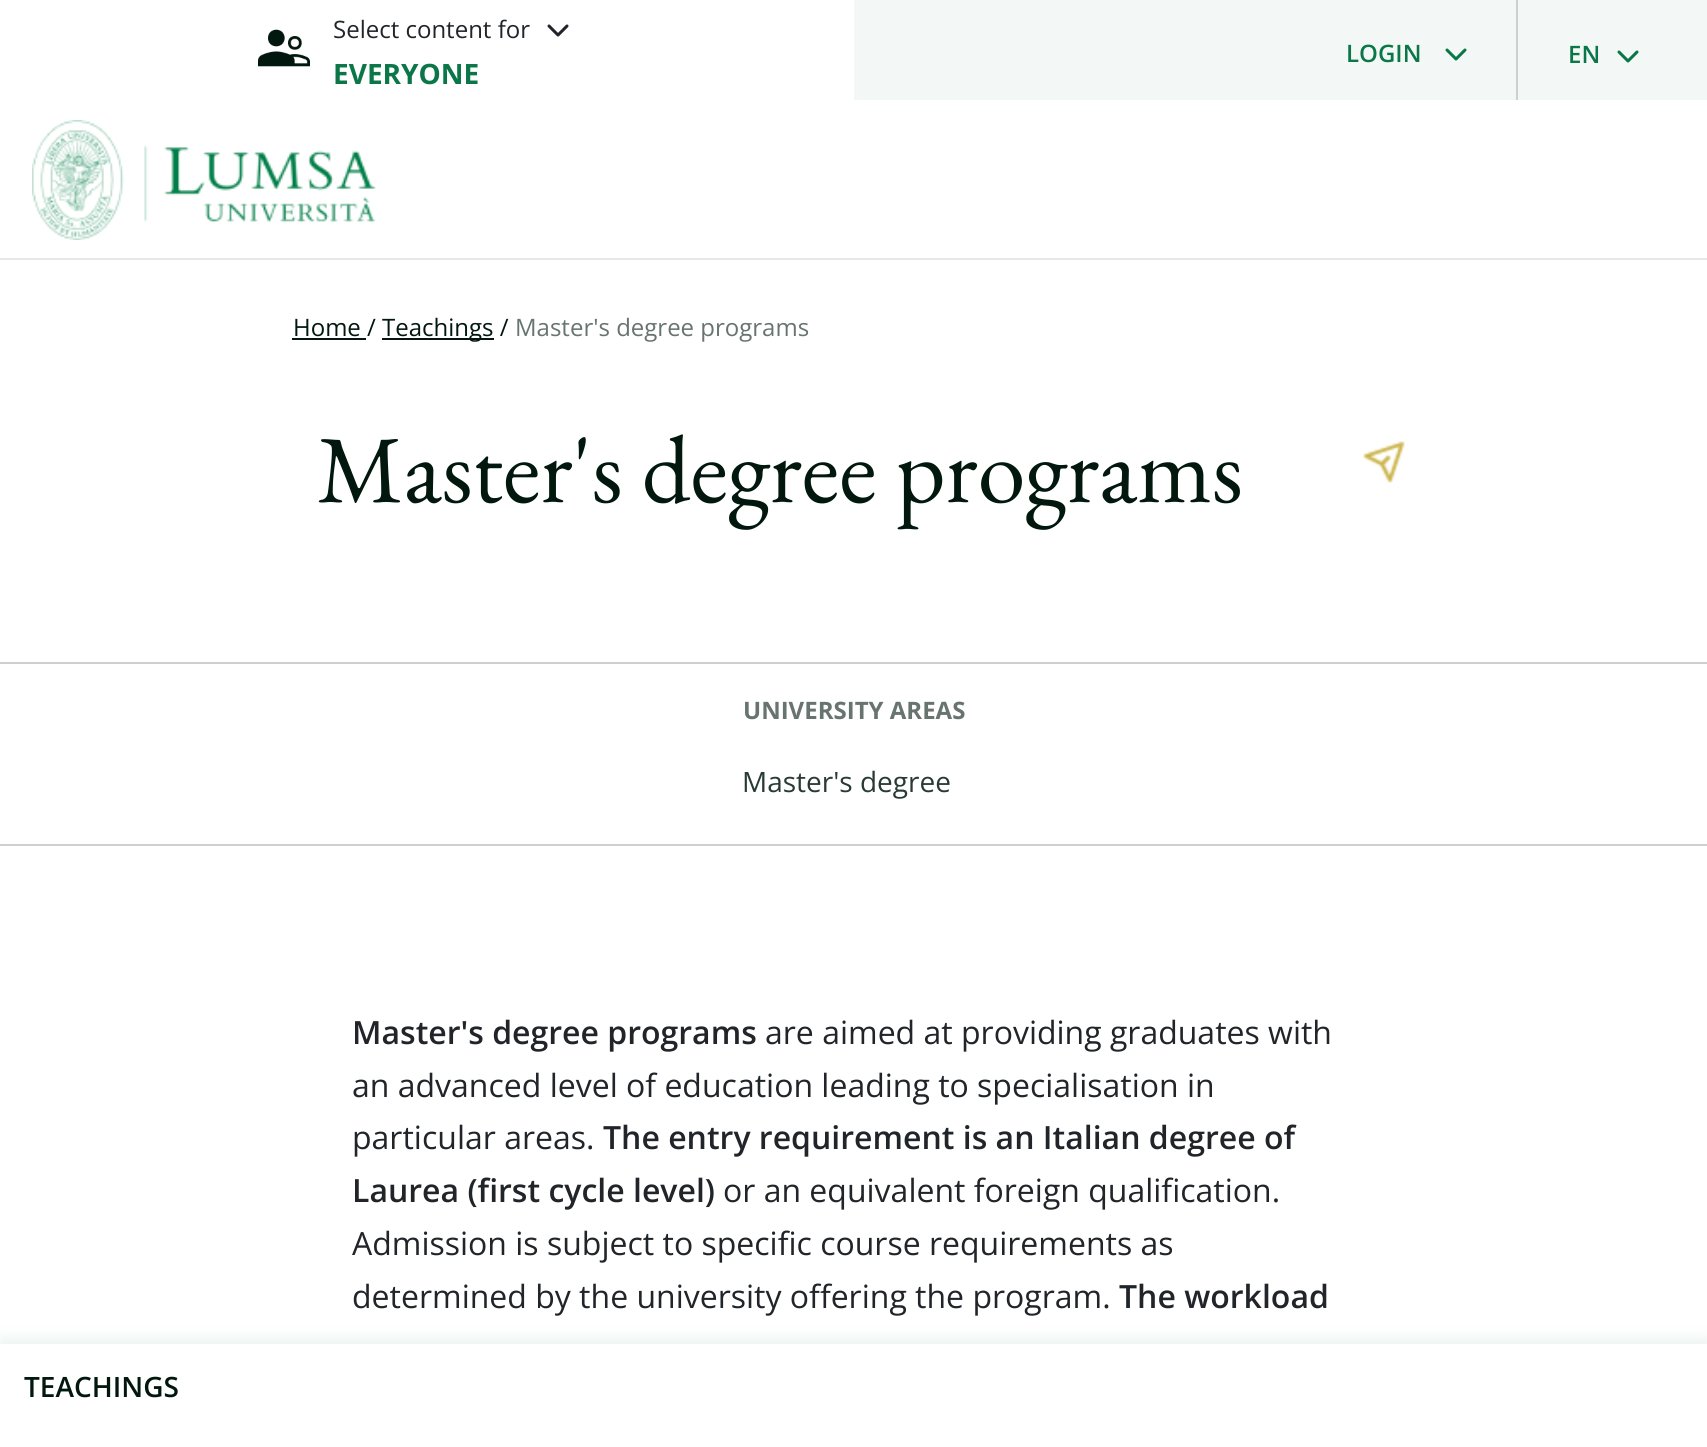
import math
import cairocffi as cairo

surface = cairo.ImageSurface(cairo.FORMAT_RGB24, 1707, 1447)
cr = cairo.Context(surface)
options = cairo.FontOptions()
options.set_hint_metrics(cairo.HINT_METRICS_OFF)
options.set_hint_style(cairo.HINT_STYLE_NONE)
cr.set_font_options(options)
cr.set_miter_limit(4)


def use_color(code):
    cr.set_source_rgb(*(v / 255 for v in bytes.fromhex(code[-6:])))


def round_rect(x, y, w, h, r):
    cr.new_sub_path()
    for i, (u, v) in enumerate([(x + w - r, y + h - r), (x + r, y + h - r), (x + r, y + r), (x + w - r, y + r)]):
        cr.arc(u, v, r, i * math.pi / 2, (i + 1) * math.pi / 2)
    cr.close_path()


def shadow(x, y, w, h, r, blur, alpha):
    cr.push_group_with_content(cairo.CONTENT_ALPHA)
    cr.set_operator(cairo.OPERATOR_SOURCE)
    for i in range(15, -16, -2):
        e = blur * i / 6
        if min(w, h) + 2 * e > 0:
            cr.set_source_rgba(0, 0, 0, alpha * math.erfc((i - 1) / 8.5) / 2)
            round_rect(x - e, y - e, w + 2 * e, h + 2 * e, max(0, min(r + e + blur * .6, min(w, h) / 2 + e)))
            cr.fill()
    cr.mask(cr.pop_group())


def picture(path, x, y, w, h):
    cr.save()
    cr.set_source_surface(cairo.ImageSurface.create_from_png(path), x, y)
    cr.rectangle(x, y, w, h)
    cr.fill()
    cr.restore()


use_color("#ffffff")
cr.paint()
picture("img1.png", 258, 29, 52, 38)
cr.select_font_face("Open Sans")
cr.set_font_size(24)
use_color("#212529")
cr.move_to(333, 38)
cr.show_text("Select content for")
picture("img2.png", 547, 24, 22, 13)
cr.select_font_face("Open Sans", cairo.FONT_SLANT_NORMAL, cairo.FONT_WEIGHT_BOLD)
cr.set_font_size(28)
use_color("#0b7749")
cr.move_to(333, 84)
cr.show_text("EVERYONE")
use_color("#f3f8f6")
cr.rectangle(854, 0, 853, 100)
cr.fill()
use_color("#ccd1cf")
cr.rectangle(1516, 0, 2, 100)
cr.fill()
cr.select_font_face("Open Sans SemiBold")
cr.set_font_size(24)
use_color("#0b7749")
cr.move_to(1346, 62)
cr.show_text("LOGIN")
picture("img3.png", 1445, 48, 22, 13)
cr.move_to(1568, 63)
cr.show_text("EN")
picture("img3.png", 1617, 50, 22, 13)
use_color("#e6e8e7")
cr.rectangle(0, 258, 1707, 2)
cr.fill()
picture("img4.png", 32, 120, 344, 120)
cr.select_font_face("Open Sans")
use_color("#02180f")
cr.move_to(293, 336)
cr.show_text("Home /")
cr.rectangle(292, 338, 74, 2)
cr.fill()
cr.rectangle(382, 338, 112, 2)
cr.fill()
cr.move_to(382, 336)
cr.show_text("Teachings /")
use_color("#67746f")
cr.move_to(515, 336)
cr.show_text("Master's degree programs")
cr.select_font_face("EB Garamond")
cr.set_font_size(96)
use_color("#02180f")
cr.move_to(317, 502)
cr.show_text("Master's degree programs")
picture("img5.png", 1363, 441, 42, 42)
use_color("#ccd1cf")
cr.rectangle(0, 662, 1707, 2)
cr.fill()
cr.rectangle(0, 844, 1707, 2)
cr.fill()
cr.select_font_face("Open Sans", cairo.FONT_SLANT_NORMAL, cairo.FONT_WEIGHT_BOLD)
cr.set_font_size(24)
use_color("#67746f")
cr.move_to(743, 719)
cr.show_text("UNIVERSITY AREAS")
cr.select_font_face("Open Sans")
cr.set_font_size(28)
use_color("#283b33")
cr.move_to(742, 792)
cr.show_text("Master's degree")
cr.select_font_face("Open Sans SemiBold")
cr.set_font_size(32)
use_color("#212529")
cr.move_to(352, 1044)
cr.show_text("Master's degree programs")
cr.select_font_face("Open Sans")
cr.move_to(765, 1044)
cr.show_text("are aimed at providing graduates with")
cr.move_to(352, 1097)
cr.show_text("an advanced level of education leading to specialisation in")
cr.move_to(352, 1149)
cr.show_text("particular areas.")
cr.select_font_face("Open Sans SemiBold")
cr.move_to(603, 1149)
cr.show_text("The entry requirement is an Italian degree of")
cr.move_to(352, 1202)
cr.show_text("Laurea (first cycle level)")
cr.select_font_face("Open Sans")
cr.move_to(723, 1202)
cr.show_text("or an equivalent foreign qualification.")
cr.move_to(352, 1255)
cr.show_text("Admission is subject to specific course requirements as")
cr.move_to(352, 1308)
cr.show_text("determined by the university offering the program.")
cr.select_font_face("Open Sans SemiBold")
cr.move_to(1119, 1308)
cr.show_text("The workload")
use_color("#0b7749")
shadow(0, 1340, 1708, 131, 0, 8, 0.1)
use_color("#ffffff")
cr.rectangle(0, 1344, 1707, 103)
cr.fill()
cr.set_font_size(28)
use_color("#02180f")
cr.move_to(24, 1397)
cr.show_text("TEACHINGS")
surface.write_to_png("result.png")
